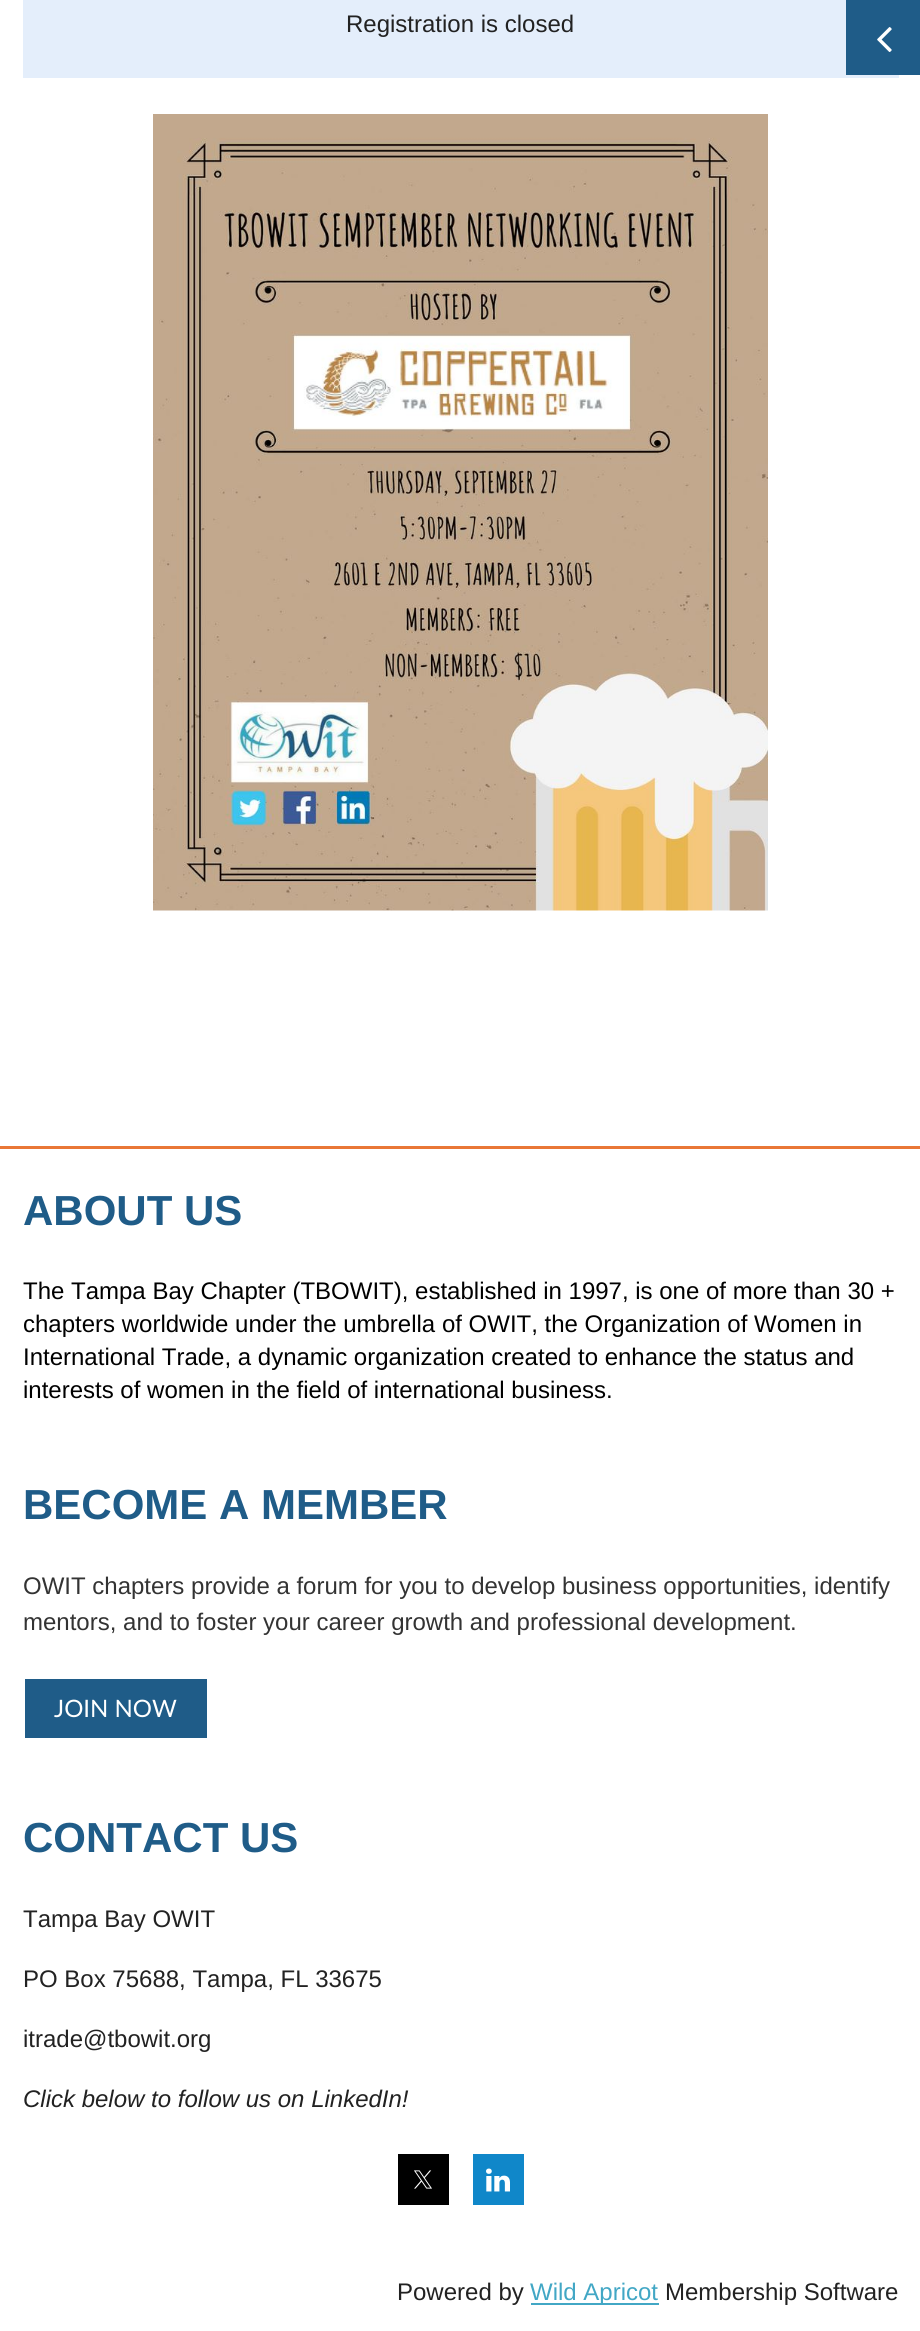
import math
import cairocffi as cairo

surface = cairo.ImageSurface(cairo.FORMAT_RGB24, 920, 2331)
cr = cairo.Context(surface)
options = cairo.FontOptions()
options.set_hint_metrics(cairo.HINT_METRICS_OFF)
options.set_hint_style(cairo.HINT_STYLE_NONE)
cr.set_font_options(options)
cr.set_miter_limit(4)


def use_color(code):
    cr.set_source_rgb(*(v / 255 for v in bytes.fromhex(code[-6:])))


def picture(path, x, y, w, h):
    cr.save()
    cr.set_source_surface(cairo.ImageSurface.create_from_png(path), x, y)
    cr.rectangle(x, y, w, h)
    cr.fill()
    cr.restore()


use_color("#ffffff")
cr.paint()
use_color("#e4eefb")
cr.rectangle(23, 0, 876, 78)
cr.fill()
use_color("#1f5c88")
cr.rectangle(846, 0, 74, 75)
cr.fill()
picture("img1.png", 877, 27, 15, 25)
cr.select_font_face("Liberation Sans")
cr.set_font_size(24)
use_color("#222222")
cr.move_to(346, 32)
cr.show_text("Registration is closed")
picture("img2.png", 153, 114, 615, 797)
use_color("#e97736")
cr.rectangle(0, 1146, 920, 3)
cr.fill()
cr.select_font_face("Liberation Sans", cairo.FONT_SLANT_NORMAL, cairo.FONT_WEIGHT_BOLD)
cr.set_font_size(42)
use_color("#1f5c88")
cr.move_to(23, 1225)
cr.show_text("ABOUT US")
cr.select_font_face("Liberation Sans")
cr.set_font_size(24)
use_color("#000000")
cr.move_to(23, 1299)
cr.show_text("The Tampa Bay Chapter (TBOWIT), established in 1997, is one of more than 30 +")
cr.move_to(23, 1332)
cr.show_text("chapters worldwide under the umbrella of OWIT, the Organization of Women in")
cr.move_to(23, 1365)
cr.show_text("International Trade, a dynamic organization created to enhance the status and")
cr.move_to(23, 1398)
cr.show_text("interests of women in the field of international business.")
cr.select_font_face("Liberation Sans", cairo.FONT_SLANT_NORMAL, cairo.FONT_WEIGHT_BOLD)
cr.set_font_size(42)
use_color("#1f5c88")
cr.move_to(23, 1519)
cr.show_text("BECOME A MEMBER")
cr.select_font_face("Liberation Sans")
cr.set_font_size(24)
use_color("#333333")
cr.move_to(23, 1594)
cr.show_text("OWIT chapters provide a forum for you to develop business opportunities, identify")
cr.move_to(23, 1630)
cr.show_text("mentors, and to foster your career growth and professional development.")
use_color("#1f5c88")
cr.rectangle(25, 1679, 182, 59)
cr.fill()
cr.select_font_face("Lato")
use_color("#ffffff")
cr.move_to(54, 1717)
cr.show_text("JOIN NOW")
cr.select_font_face("Liberation Sans", cairo.FONT_SLANT_NORMAL, cairo.FONT_WEIGHT_BOLD)
cr.set_font_size(42)
use_color("#1f5c88")
cr.move_to(23, 1852)
cr.show_text("CONTACT US")
cr.select_font_face("Liberation Sans")
cr.set_font_size(24)
use_color("#222222")
cr.move_to(23, 1927)
cr.show_text("Tampa Bay OWIT")
cr.move_to(23, 1987)
cr.show_text("PO Box 75688, Tampa, FL 33675")
cr.move_to(23, 2047)
cr.show_text("itrade@tbowit.org")
cr.select_font_face("Liberation Sans", cairo.FONT_SLANT_ITALIC)
cr.move_to(23, 2107)
cr.show_text("Click below to follow us on LinkedIn!")
use_color("#000000")
cr.rectangle(398, 2154, 51, 51)
cr.fill()
picture("img3.png", 414, 2170, 18, 19)
use_color("#1087c9")
cr.rectangle(473, 2154, 51, 51)
cr.fill()
picture("img4.png", 486, 2168, 24, 24)
cr.select_font_face("Liberation Sans")
use_color("#222222")
cr.move_to(397, 2300)
cr.show_text("Powered by")
use_color("#42a7c5")
cr.rectangle(531, 2303, 128, 2)
cr.fill()
cr.move_to(530, 2300)
cr.show_text("Wild Apricot")
use_color("#222222")
cr.move_to(665, 2300)
cr.show_text("Membership Software")
surface.write_to_png("result.png")
